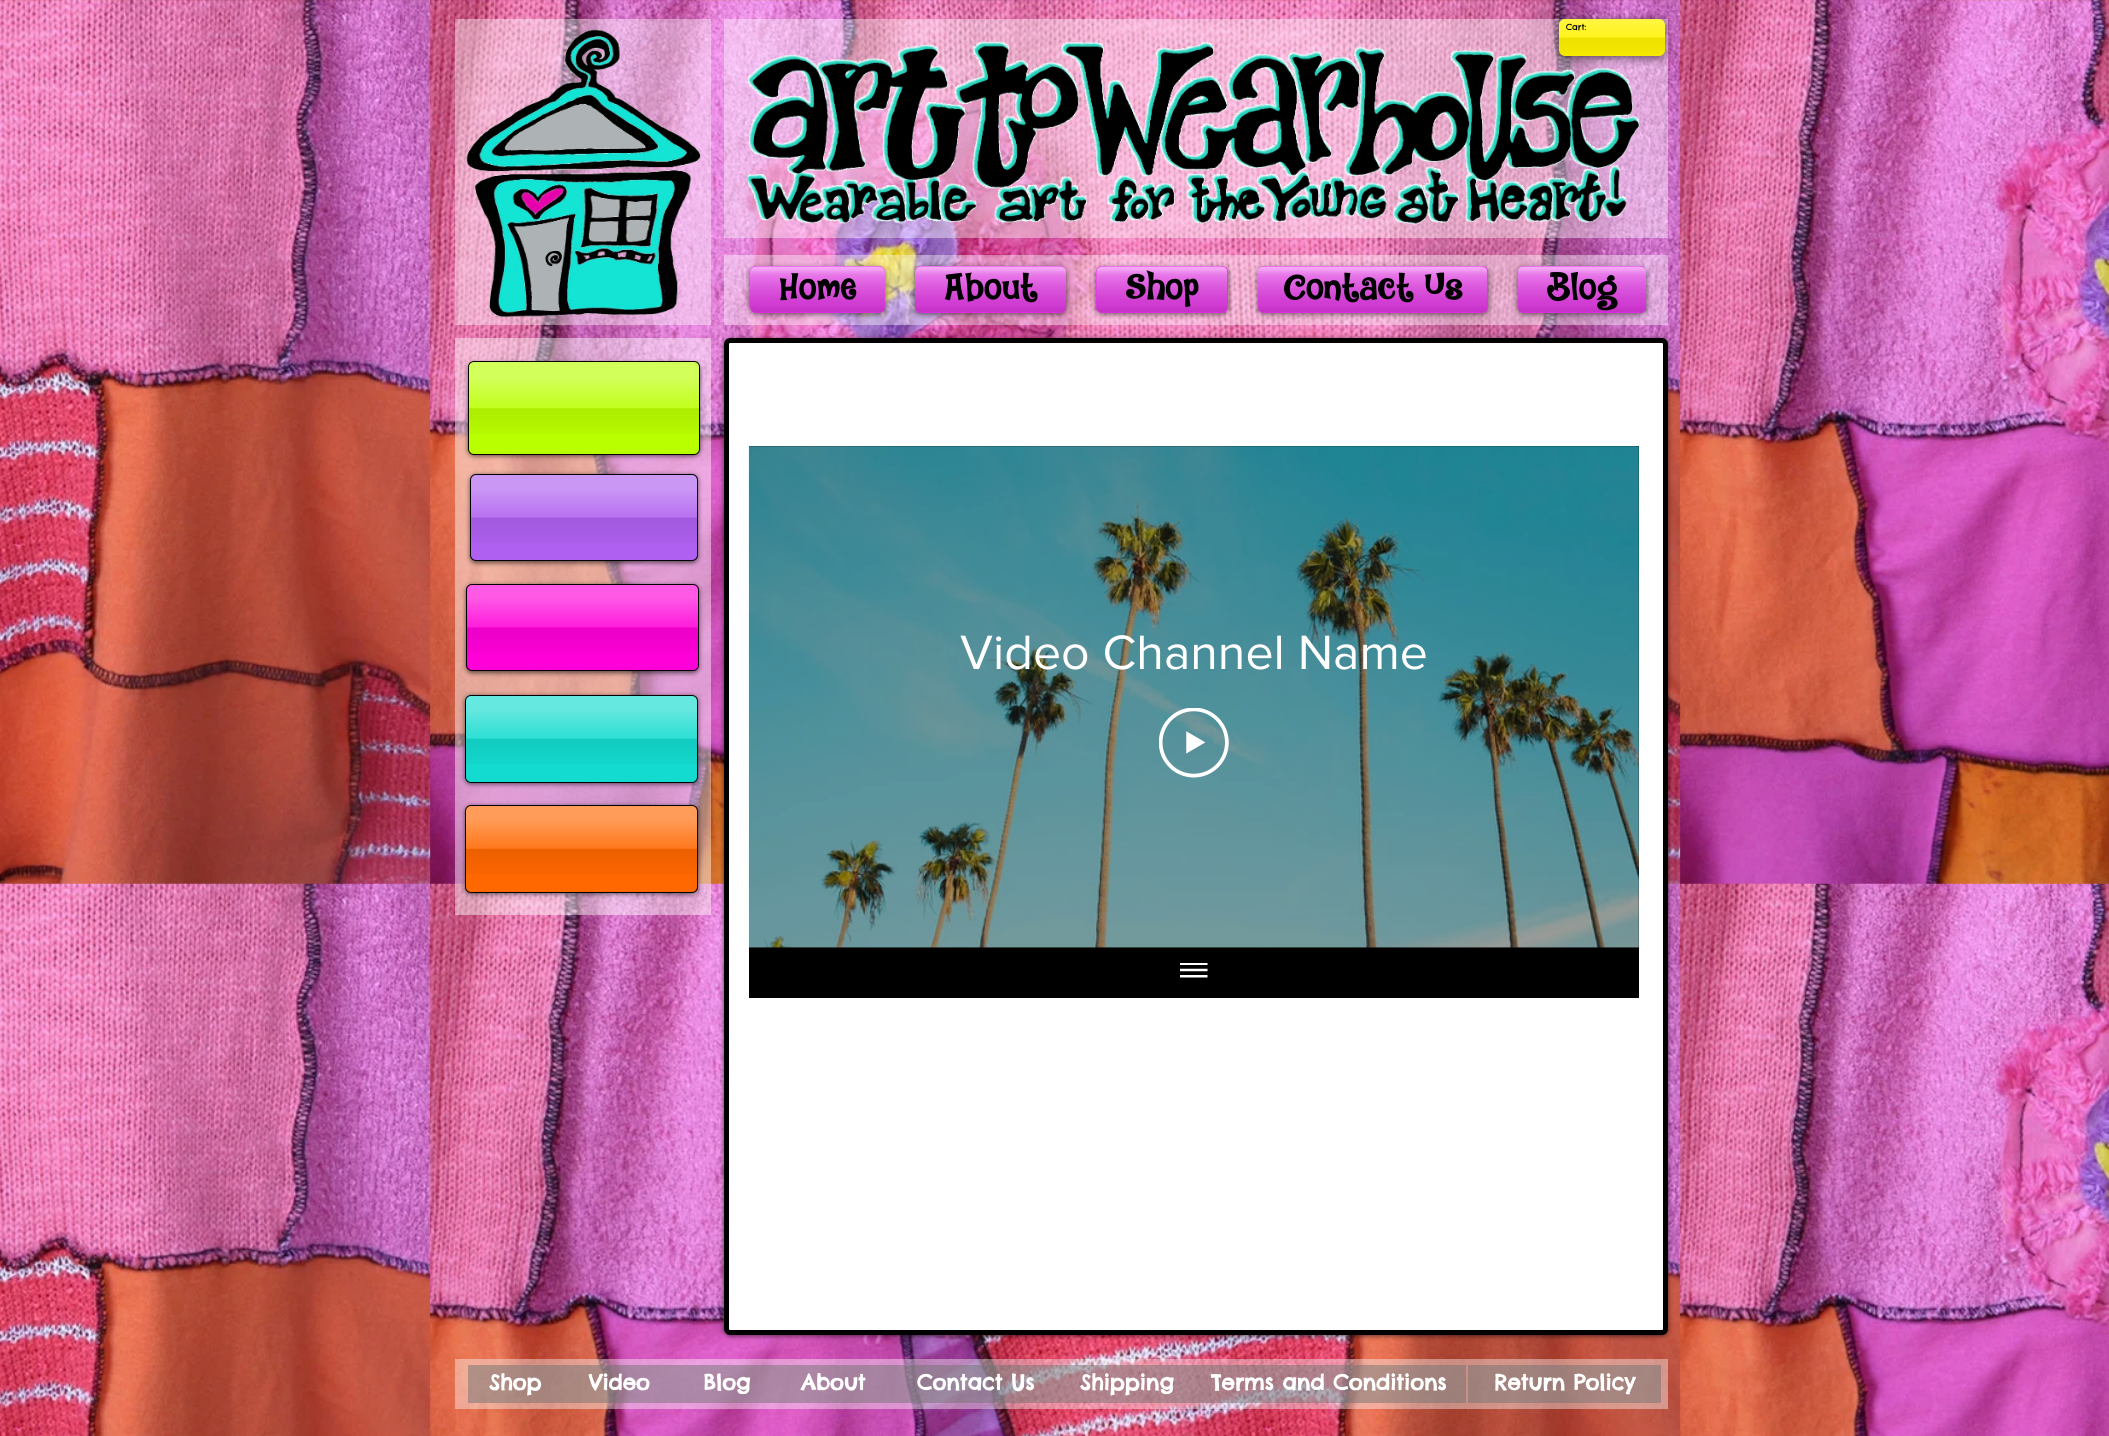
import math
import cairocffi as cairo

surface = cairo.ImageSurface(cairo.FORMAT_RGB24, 2109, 1436)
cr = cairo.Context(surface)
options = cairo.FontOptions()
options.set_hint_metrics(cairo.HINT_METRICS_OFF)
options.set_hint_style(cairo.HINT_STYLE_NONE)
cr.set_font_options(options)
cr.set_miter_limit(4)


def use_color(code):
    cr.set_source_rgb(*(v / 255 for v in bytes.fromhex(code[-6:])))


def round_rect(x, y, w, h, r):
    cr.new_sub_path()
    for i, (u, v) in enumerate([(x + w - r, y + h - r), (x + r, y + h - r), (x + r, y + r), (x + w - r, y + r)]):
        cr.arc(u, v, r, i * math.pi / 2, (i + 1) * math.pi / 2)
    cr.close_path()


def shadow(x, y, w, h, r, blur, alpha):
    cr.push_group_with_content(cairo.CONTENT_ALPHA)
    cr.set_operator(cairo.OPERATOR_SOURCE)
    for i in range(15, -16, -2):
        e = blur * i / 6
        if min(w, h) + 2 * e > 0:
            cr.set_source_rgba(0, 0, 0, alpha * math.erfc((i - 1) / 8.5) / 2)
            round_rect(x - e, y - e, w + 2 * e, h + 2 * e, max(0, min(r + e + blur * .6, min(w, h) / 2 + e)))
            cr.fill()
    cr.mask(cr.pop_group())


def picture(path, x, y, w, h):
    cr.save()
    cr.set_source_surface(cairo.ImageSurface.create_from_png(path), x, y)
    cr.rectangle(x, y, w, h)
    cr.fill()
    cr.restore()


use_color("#ffffff")
cr.paint()
picture("img1.png", 0, 0, 2109, 1436)
cr.set_source_rgba(1, 1, 1, 0.4)
cr.rectangle(455, 19, 256, 306)
cr.fill()
picture("img2.png", 466, 29, 251, 290)
cr.rectangle(724, 19, 944, 219)
cr.fill()
use_color("#010101")
shadow(1558, 20, 106, 38, 6, 4.5, 0.6)
use_color("#fff200")
round_rect(1559, 19, 106, 37, 6)
cr.fill()
picture("img3.png", 1559, 19, 106, 37)
cr.select_font_face("Chelsea Market")
cr.set_font_size(8.5)
use_color("#000000")
cr.move_to(1566, 30)
cr.show_text("Cart:")
picture("img4.png", 747, 41, 893, 184)
cr.set_source_rgba(1, 1, 1, 0.4)
cr.rectangle(724, 255, 944, 70)
cr.fill()
use_color("#000000")
shadow(750, 268, 135, 46, 6, 3, 0.6)
use_color("#e52ce7")
round_rect(750, 266, 135, 47, 6)
cr.fill()
picture("img5.png", 750, 266, 135, 46)
picture("img6.png", 750, 271, 135, 42)
cr.select_font_face("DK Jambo", cairo.FONT_SLANT_NORMAL, cairo.FONT_WEIGHT_BOLD)
cr.set_font_size(35)
use_color("#000000")
cr.move_to(779, 300)
cr.show_text("Home")
use_color("#000000")
shadow(915, 268, 151, 46, 6, 3, 0.6)
use_color("#e52ce7")
round_rect(915, 266, 151, 47, 6)
cr.fill()
picture("img7.png", 915, 266, 151, 46)
picture("img8.png", 915, 271, 151, 42)
use_color("#000000")
cr.move_to(944, 300)
cr.show_text("About")
use_color("#000000")
shadow(1096, 268, 132, 46, 6, 3, 0.6)
use_color("#e52ce7")
round_rect(1096, 266, 132, 47, 6)
cr.fill()
picture("img9.png", 1096, 266, 132, 46)
picture("img10.png", 1096, 271, 132, 42)
use_color("#000000")
cr.move_to(1125, 300)
cr.show_text("Shop")
use_color("#000000")
shadow(1258, 268, 230, 46, 6, 3, 0.6)
use_color("#e52ce7")
round_rect(1258, 266, 230, 47, 6)
cr.fill()
picture("img11.png", 1257, 266, 231, 46)
picture("img12.png", 1257, 271, 231, 42)
use_color("#000000")
cr.move_to(1283, 300)
cr.show_text("Contact Us")
use_color("#000000")
shadow(1518, 268, 128, 46, 6, 3, 0.6)
use_color("#e52ce7")
round_rect(1518, 266, 128, 47, 6)
cr.fill()
picture("img13.png", 1517, 266, 129, 46)
picture("img14.png", 1517, 271, 129, 42)
use_color("#000000")
cr.move_to(1546, 300)
cr.show_text("Blog")
cr.set_source_rgba(1, 1, 1, 0.45)
cr.rectangle(455, 338, 256, 577)
cr.fill()
use_color("#000000")
shadow(468, 363, 232, 93, 6, 2.5, 0.6)
use_color("#baff00")
round_rect(468, 361, 232, 94, 6)
cr.fill()
picture("img15.png", 467, 361, 233, 73)
round_rect(468.5, 361.5, 231, 93, 5.5)
use_color("#000000")
cr.set_line_width(1)
cr.stroke()
use_color("#000000")
shadow(470, 475, 228, 88, 6, 2.5, 0.6)
use_color("#af60f0")
round_rect(470, 474, 228, 87, 6)
cr.fill()
picture("img16.png", 470, 474, 228, 69)
round_rect(470.5, 474.5, 227, 86, 5.5)
use_color("#000000")
cr.stroke()
use_color("#000000")
shadow(466, 585, 233, 88, 6, 2.5, 0.6)
use_color("#ff00d8")
round_rect(466, 584, 233, 87, 6)
cr.fill()
picture("img17.png", 466, 584, 233, 69)
round_rect(466.5, 584.5, 232, 86, 5.5)
use_color("#000000")
cr.stroke()
use_color("#000000")
shadow(465, 696, 233, 88, 6, 2.5, 0.6)
use_color("#13dbcf")
round_rect(465, 695, 233, 88, 6)
cr.fill()
picture("img18.png", 465, 695, 233, 69)
round_rect(465.5, 695.5, 232, 87, 5.5)
use_color("#000000")
cr.stroke()
use_color("#000000")
shadow(465, 806, 233, 88, 6, 2.5, 0.6)
use_color("#ff6700")
round_rect(465, 805, 233, 88, 6)
cr.fill()
picture("img19.png", 465, 805, 233, 69)
round_rect(465.5, 805.5, 232, 87, 5.5)
use_color("#000000")
cr.stroke()
use_color("#000000")
shadow(724, 339, 944, 997, 6, 2.5, 0.6)
use_color("#ffffff")
round_rect(726.5, 340.5, 939, 992, 3.5)
cr.fill_preserve()
use_color("#000000")
cr.set_line_width(5)
cr.stroke()
cr.rectangle(749, 446, 890, 552)
cr.fill()
picture("img20.png", 1180, 963, 28, 15)
picture("img21.png", 748, 446, 891, 502)
picture("img22.png", 748, 446, 891, 502)
cr.set_source_rgba(0, 0, 0, 0.35)
cr.rectangle(749, 446, 890, 502)
cr.fill()
cr.select_font_face("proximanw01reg")
cr.set_font_size(50)
use_color("#ffffff")
cr.move_to(960, 669)
cr.show_text("Video Channel Name")
picture("img23.png", 1159, 708, 70, 70)
cr.set_source_rgba(1, 1, 1, 0.4)
cr.rectangle(455, 1359, 1213, 50)
cr.fill()
cr.set_source_rgba(0.447, 0.447, 0.447, 0.5)
cr.rectangle(468, 1365, 96, 38)
cr.fill()
cr.select_font_face("Chelsea Market", cairo.FONT_SLANT_NORMAL, cairo.FONT_WEIGHT_BOLD)
cr.set_font_size(21.25)
use_color("#ffffff")
cr.move_to(489, 1390)
cr.show_text("Shop")
cr.set_source_rgba(0.447, 0.447, 0.447, 0.5)
cr.rectangle(564, 1365, 111, 38)
cr.fill()
use_color("#ffffff")
cr.move_to(589, 1390)
cr.show_text("Video")
cr.set_source_rgba(0.447, 0.447, 0.447, 0.5)
cr.rectangle(675, 1365, 103, 38)
cr.fill()
use_color("#ffffff")
cr.move_to(703, 1390)
cr.show_text("Blog")
cr.set_source_rgba(0.447, 0.447, 0.447, 0.5)
cr.rectangle(778, 1365, 111, 38)
cr.fill()
use_color("#ffffff")
cr.move_to(801, 1390)
cr.show_text("About")
cr.set_source_rgba(0.447, 0.447, 0.447, 0.5)
cr.rectangle(889, 1365, 174, 38)
cr.fill()
use_color("#ffffff")
cr.move_to(917, 1390)
cr.show_text("Contact Us")
cr.set_source_rgba(0.447, 0.447, 0.447, 0.5)
cr.rectangle(1063, 1365, 128, 38)
cr.fill()
use_color("#ffffff")
cr.move_to(1080, 1390)
cr.show_text("Shipping")
cr.set_source_rgba(0.447, 0.447, 0.447, 0.5)
cr.rectangle(1191, 1365, 275, 38)
cr.fill()
use_color("#ffffff")
cr.move_to(1211, 1390)
cr.show_text("Terms and Conditions")
cr.set_source_rgba(0.447, 0.447, 0.447, 0.5)
cr.rectangle(1468, 1365, 193, 38)
cr.fill()
use_color("#ffffff")
cr.move_to(1494, 1390)
cr.show_text("Return Policy")
surface.write_to_png("result.png")
